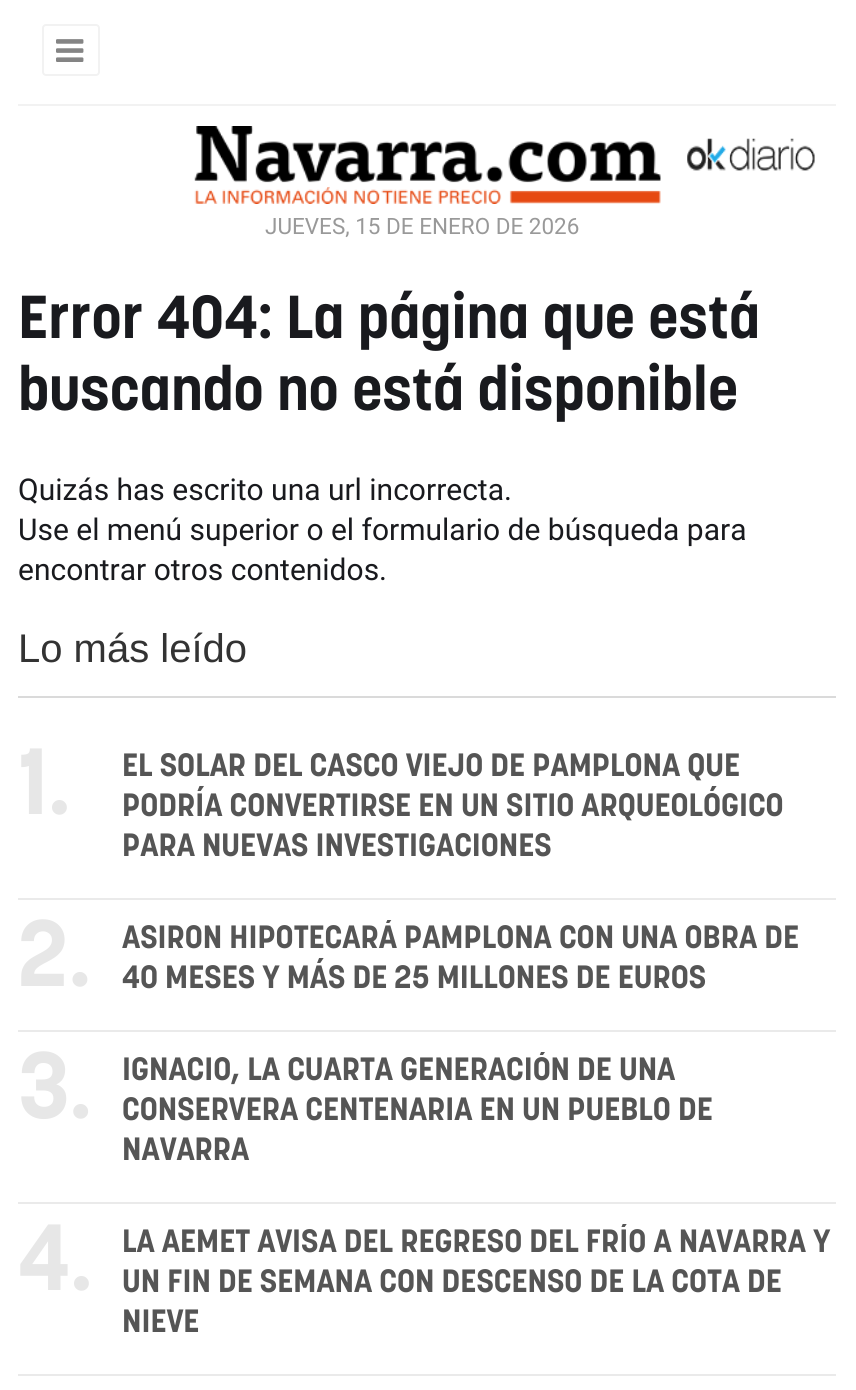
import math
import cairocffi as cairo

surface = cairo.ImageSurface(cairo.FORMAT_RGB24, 856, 1390)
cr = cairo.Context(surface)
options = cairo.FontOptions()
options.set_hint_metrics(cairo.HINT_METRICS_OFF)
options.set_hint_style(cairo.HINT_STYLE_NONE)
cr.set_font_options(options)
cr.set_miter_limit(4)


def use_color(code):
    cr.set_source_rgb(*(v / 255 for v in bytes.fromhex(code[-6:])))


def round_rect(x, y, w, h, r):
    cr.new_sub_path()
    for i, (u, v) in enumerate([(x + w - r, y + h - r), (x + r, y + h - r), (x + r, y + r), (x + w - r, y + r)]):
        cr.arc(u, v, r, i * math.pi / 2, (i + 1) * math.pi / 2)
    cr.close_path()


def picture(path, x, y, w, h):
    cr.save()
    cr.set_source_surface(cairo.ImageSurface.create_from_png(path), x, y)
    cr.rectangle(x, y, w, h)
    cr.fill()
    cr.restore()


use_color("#ffffff")
cr.paint()
use_color("#f2f2f2")
cr.rectangle(18, 104, 818, 2)
cr.fill()
round_rect(43, 25, 56, 50, 3)
cr.stroke()
picture("img1.png", 56, 39, 28, 23)
picture("img2.png", 687, 138, 128, 33)
picture("img3.png", 194, 126, 467, 78)
cr.select_font_face("Roboto")
cr.set_font_size(22.5)
use_color("#999999")
cr.move_to(265, 234)
cr.show_text("JUEVES, 15 DE ENERO DE 2026")
cr.select_font_face("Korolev", cairo.FONT_SLANT_NORMAL, cairo.FONT_WEIGHT_BOLD)
cr.set_font_size(60)
use_color("#191a1e")
cr.move_to(18, 338)
cr.show_text("Error 404: La página que está")
cr.move_to(18, 410)
cr.show_text("buscando no está disponible")
cr.select_font_face("Roboto")
cr.set_font_size(30)
cr.move_to(18, 500)
cr.show_text("Quizás has escrito una url incorrecta.")
cr.move_to(18, 540)
cr.show_text("Use el menú superior o el formulario de búsqueda para")
cr.move_to(18, 580)
cr.show_text("encontrar otros contenidos.")
use_color("#dadada")
cr.rectangle(18, 696, 818, 2)
cr.fill()
cr.select_font_face("Liberation Sans")
cr.set_font_size(40)
use_color("#333333")
cr.move_to(18, 662)
cr.show_text("Lo más leído")
use_color("#eaeaea")
cr.rectangle(18, 898, 818, 2)
cr.fill()
cr.select_font_face("Korolev", cairo.FONT_SLANT_NORMAL, cairo.FONT_WEIGHT_BOLD)
cr.set_font_size(93)
use_color("#e7e7e7")
cr.move_to(18, 814)
cr.show_text("1.")
cr.set_font_size(32)
use_color("#555555")
cr.move_to(122, 776)
cr.show_text("EL SOLAR DEL CASCO VIEJO DE PAMPLONA QUE")
cr.move_to(122, 816)
cr.show_text("PODRÍA CONVERTIRSE EN UN SITIO ARQUEOLÓGICO")
cr.move_to(122, 856)
cr.show_text("PARA NUEVAS INVESTIGACIONES")
use_color("#eaeaea")
cr.rectangle(18, 1030, 818, 2)
cr.fill()
cr.set_font_size(93)
use_color("#e7e7e7")
cr.move_to(18, 986)
cr.show_text("2.")
cr.save()
cr.rectangle(122, 920, 714, 80)
cr.clip()
cr.set_font_size(32)
use_color("#555555")
cr.move_to(122, 948)
cr.show_text("ASIRON HIPOTECARÁ PAMPLONA CON UNA OBRA DE")
cr.restore()
cr.set_font_size(32)
use_color("#555555")
cr.move_to(122, 988)
cr.show_text("40 MESES Y MÁS DE 25 MILLONES DE EUROS")
use_color("#eaeaea")
cr.rectangle(18, 1202, 818, 2)
cr.fill()
cr.set_font_size(93)
use_color("#e7e7e7")
cr.move_to(18, 1118)
cr.show_text("3.")
cr.save()
cr.rectangle(122, 1052, 714, 120)
cr.clip()
cr.set_font_size(32)
use_color("#555555")
cr.move_to(122, 1080)
cr.show_text("IGNACIO, LA CUARTA GENERACIÓN DE UNA")
cr.restore()
cr.set_font_size(32)
use_color("#555555")
cr.move_to(122, 1120)
cr.show_text("CONSERVERA CENTENARIA EN UN PUEBLO DE")
cr.move_to(122, 1160)
cr.show_text("NAVARRA")
use_color("#eaeaea")
cr.rectangle(18, 1374, 818, 2)
cr.fill()
cr.set_font_size(93)
use_color("#e7e7e7")
cr.move_to(18, 1290)
cr.show_text("4.")
cr.save()
cr.rectangle(122, 1224, 714, 120)
cr.clip()
cr.set_font_size(32)
use_color("#555555")
cr.move_to(122, 1252)
cr.show_text("LA AEMET AVISA DEL REGRESO DEL FRÍO A NAVARRA Y")
cr.restore()
cr.set_font_size(32)
use_color("#555555")
cr.move_to(122, 1292)
cr.show_text("UN FIN DE SEMANA CON DESCENSO DE LA COTA DE")
cr.move_to(122, 1332)
cr.show_text("NIEVE")
surface.write_to_png("result.png")
